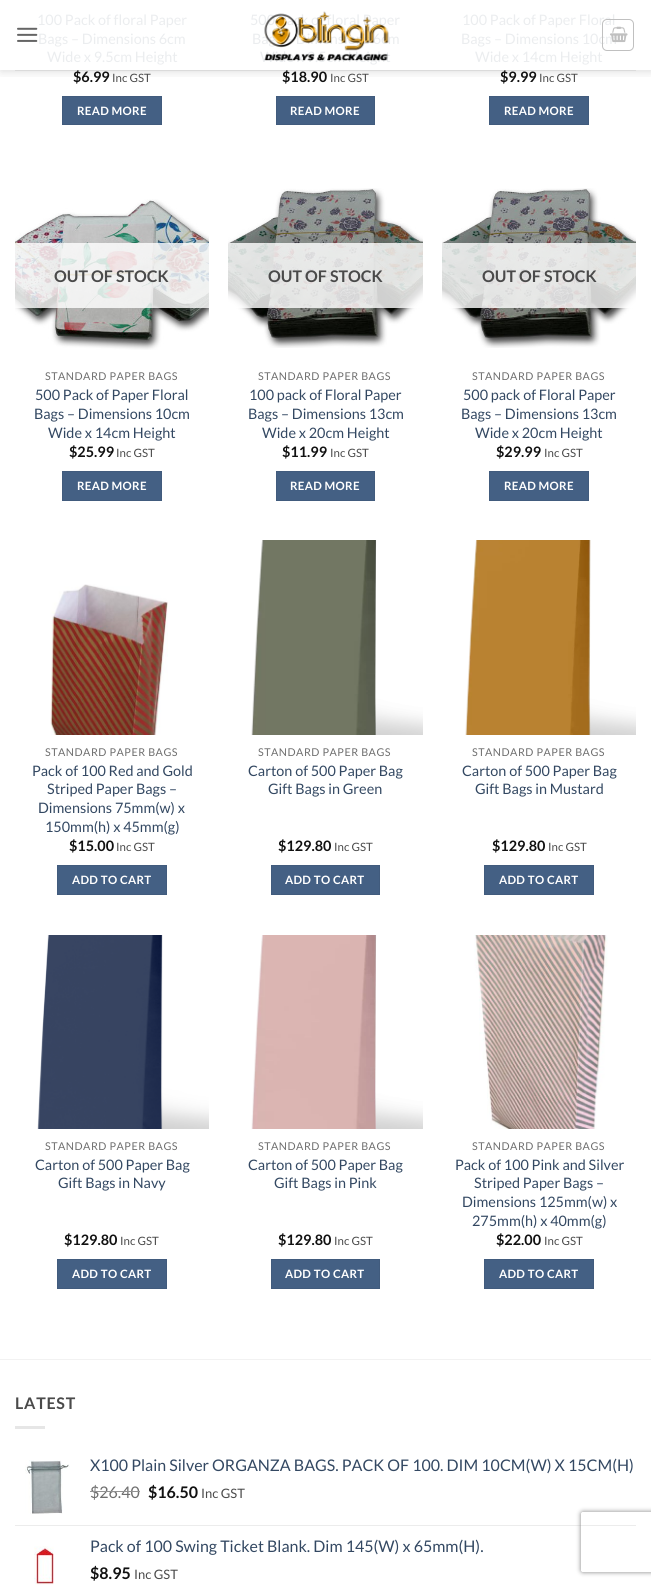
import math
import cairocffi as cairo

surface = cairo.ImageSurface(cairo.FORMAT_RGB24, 651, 1586)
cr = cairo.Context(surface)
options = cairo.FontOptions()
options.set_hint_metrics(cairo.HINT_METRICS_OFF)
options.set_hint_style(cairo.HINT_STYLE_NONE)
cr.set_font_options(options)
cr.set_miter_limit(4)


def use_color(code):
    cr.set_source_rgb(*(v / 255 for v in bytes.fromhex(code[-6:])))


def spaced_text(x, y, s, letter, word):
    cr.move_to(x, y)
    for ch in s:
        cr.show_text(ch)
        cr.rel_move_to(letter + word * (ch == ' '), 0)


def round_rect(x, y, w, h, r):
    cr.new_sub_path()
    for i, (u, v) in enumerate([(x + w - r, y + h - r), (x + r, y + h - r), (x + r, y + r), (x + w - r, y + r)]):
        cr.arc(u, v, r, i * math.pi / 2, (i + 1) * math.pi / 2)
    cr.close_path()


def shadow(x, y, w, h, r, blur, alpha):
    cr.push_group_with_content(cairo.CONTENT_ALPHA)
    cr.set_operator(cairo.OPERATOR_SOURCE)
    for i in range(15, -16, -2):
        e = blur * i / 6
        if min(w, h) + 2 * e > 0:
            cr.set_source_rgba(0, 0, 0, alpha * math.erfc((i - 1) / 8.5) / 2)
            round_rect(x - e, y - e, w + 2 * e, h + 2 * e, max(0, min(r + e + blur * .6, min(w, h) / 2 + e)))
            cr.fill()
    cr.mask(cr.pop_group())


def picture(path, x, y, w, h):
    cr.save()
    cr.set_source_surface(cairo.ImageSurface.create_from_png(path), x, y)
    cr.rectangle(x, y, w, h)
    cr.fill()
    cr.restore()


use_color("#ffffff")
cr.paint()
cr.save()
cr.rectangle(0, 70, 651, 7)
cr.clip()
use_color("#000000")
shadow(1, 1, 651, 70, 0, 5, 0.15)
cr.restore()
picture("img1.png", 17, 27, 21, 15)
cr.select_font_face("Lato")
cr.set_font_size(14.4)
use_color("#ebedef")
cr.move_to(250, 25)
cr.show_text("500 Pack of floral Paper")
cr.move_to(252, 44)
cr.show_text("Bags – Dimensions 6cm")
cr.move_to(260, 62)
cr.show_text("Wide x 9.5cm Height")
picture("img2.png", 264, 11, 125, 50)
cr.move_to(462, 25)
cr.show_text("100 Pack of Paper Floral")
cr.move_to(461, 44)
cr.show_text("Bags – Dimensions 10cm")
round_rect(602.5, 19.5, 31, 31, 4.5)
use_color("#c0c0c0")
cr.set_line_width(1)
cr.stroke()
picture("img3.png", 610, 26, 18, 17)
cr.set_source_rgba(0.29, 0.29, 0.29, 0.1)
cr.rectangle(15, 70, 621, 1)
cr.fill()
use_color("#ebedef")
cr.move_to(37, 25)
cr.show_text("100 Pack of floral Paper")
cr.move_to(38, 44)
cr.show_text("Bags – Dimensions 6cm")
cr.move_to(47, 62)
cr.show_text("Wide x 9.5cm Height")
cr.select_font_face("Lato", cairo.FONT_SLANT_NORMAL, cairo.FONT_WEIGHT_BOLD)
use_color("#111111")
cr.move_to(73, 82)
cr.show_text("$6.99")
cr.select_font_face("Lato")
cr.set_font_size(11.5)
use_color("#4a4a4a")
cr.move_to(112, 82)
cr.show_text("Inc GST")
use_color("#446084")
cr.rectangle(62.5, 96.5, 99, 28)
cr.fill_preserve()
use_color("#415b7d")
cr.stroke()
cr.select_font_face("Lato", cairo.FONT_SLANT_NORMAL, cairo.FONT_WEIGHT_BOLD)
use_color("#ffffff")
spaced_text(77, 115, "READ MORE", 0.3, 0)
cr.set_font_size(14.4)
use_color("#111111")
cr.move_to(282, 82)
cr.show_text("$18.90")
cr.select_font_face("Lato")
cr.set_font_size(11.5)
use_color("#4a4a4a")
cr.move_to(330, 82)
cr.show_text("Inc GST")
use_color("#446084")
cr.rectangle(276.5, 96.5, 98, 28)
cr.fill_preserve()
use_color("#415b7d")
cr.stroke()
cr.select_font_face("Lato", cairo.FONT_SLANT_NORMAL, cairo.FONT_WEIGHT_BOLD)
use_color("#ffffff")
spaced_text(290, 115, "READ MORE", 0.3, 0)
cr.select_font_face("Lato")
cr.set_font_size(14.4)
use_color("#ebedef")
cr.move_to(475, 62)
cr.show_text("Wide x 14cm Height")
cr.select_font_face("Lato", cairo.FONT_SLANT_NORMAL, cairo.FONT_WEIGHT_BOLD)
use_color("#111111")
cr.move_to(500, 82)
cr.show_text("$9.99")
cr.select_font_face("Lato")
cr.set_font_size(11.5)
use_color("#4a4a4a")
cr.move_to(539, 82)
cr.show_text("Inc GST")
use_color("#446084")
cr.rectangle(489.5, 96.5, 99, 28)
cr.fill_preserve()
use_color("#415b7d")
cr.stroke()
cr.select_font_face("Lato", cairo.FONT_SLANT_NORMAL, cairo.FONT_WEIGHT_BOLD)
use_color("#ffffff")
spaced_text(504, 115, "READ MORE", 0.3, 0)
picture("img4.png", 15, 199, 194, 151)
cr.set_source_rgba(1, 1, 1, 0.81)
cr.rectangle(15, 243, 194, 65)
cr.fill()
cr.set_font_size(16)
use_color("#4a4a4a")
cr.move_to(54, 282)
cr.show_text("OUT OF STOCK")
cr.select_font_face("Lato")
cr.set_font_size(10.75)
use_color("#6e6e6e")
spaced_text(45, 380, "STANDARD PAPER BAGS", 0.5, 0)
cr.set_font_size(14.4)
use_color("#334862")
cr.move_to(35, 400)
cr.show_text("500 Pack of Paper Floral")
cr.move_to(34, 419)
cr.show_text("Bags – Dimensions 10cm")
cr.move_to(48, 438)
cr.show_text("Wide x 14cm Height")
cr.select_font_face("Lato", cairo.FONT_SLANT_NORMAL, cairo.FONT_WEIGHT_BOLD)
use_color("#111111")
cr.move_to(69, 457)
cr.show_text("$25.99")
cr.select_font_face("Lato")
cr.set_font_size(11.5)
use_color("#4a4a4a")
cr.move_to(116, 457)
cr.show_text("Inc GST")
use_color("#446084")
cr.rectangle(62.5, 471.5, 99, 29)
cr.fill_preserve()
use_color("#415b7d")
cr.stroke()
cr.select_font_face("Lato", cairo.FONT_SLANT_NORMAL, cairo.FONT_WEIGHT_BOLD)
use_color("#ffffff")
spaced_text(77, 490, "READ MORE", 0.3, 0)
picture("img5.png", 228, 188, 195, 160)
cr.set_source_rgba(1, 1, 1, 0.81)
cr.rectangle(228, 243, 195, 65)
cr.fill()
cr.set_font_size(16)
use_color("#4a4a4a")
cr.move_to(268, 282)
cr.show_text("OUT OF STOCK")
cr.select_font_face("Lato")
cr.set_font_size(10.75)
use_color("#6e6e6e")
spaced_text(258, 380, "STANDARD PAPER BAGS", 0.5, 0)
cr.set_font_size(14.4)
use_color("#334862")
cr.move_to(249, 400)
cr.show_text("100 pack of Floral Paper")
cr.move_to(248, 419)
cr.show_text("Bags – Dimensions 13cm")
cr.move_to(262, 438)
cr.show_text("Wide x 20cm Height")
cr.select_font_face("Lato", cairo.FONT_SLANT_NORMAL, cairo.FONT_WEIGHT_BOLD)
use_color("#111111")
cr.move_to(282, 457)
cr.show_text("$11.99")
cr.select_font_face("Lato")
cr.set_font_size(11.5)
use_color("#4a4a4a")
cr.move_to(330, 457)
cr.show_text("Inc GST")
use_color("#446084")
cr.rectangle(276.5, 471.5, 98, 29)
cr.fill_preserve()
use_color("#415b7d")
cr.stroke()
cr.select_font_face("Lato", cairo.FONT_SLANT_NORMAL, cairo.FONT_WEIGHT_BOLD)
use_color("#ffffff")
spaced_text(290, 490, "READ MORE", 0.3, 0)
picture("img6.png", 442, 188, 194, 160)
cr.set_source_rgba(1, 1, 1, 0.81)
cr.rectangle(442, 243, 194, 65)
cr.fill()
cr.set_font_size(16)
use_color("#4a4a4a")
cr.move_to(482, 282)
cr.show_text("OUT OF STOCK")
cr.select_font_face("Lato")
cr.set_font_size(10.75)
use_color("#6e6e6e")
spaced_text(472, 380, "STANDARD PAPER BAGS", 0.5, 0)
cr.set_font_size(14.4)
use_color("#334862")
cr.move_to(463, 400)
cr.show_text("500 pack of Floral Paper")
cr.move_to(461, 419)
cr.show_text("Bags – Dimensions 13cm")
cr.move_to(475, 438)
cr.show_text("Wide x 20cm Height")
cr.select_font_face("Lato", cairo.FONT_SLANT_NORMAL, cairo.FONT_WEIGHT_BOLD)
use_color("#111111")
cr.move_to(496, 457)
cr.show_text("$29.99")
cr.select_font_face("Lato")
cr.set_font_size(11.5)
use_color("#4a4a4a")
cr.move_to(544, 457)
cr.show_text("Inc GST")
use_color("#446084")
cr.rectangle(489.5, 471.5, 99, 29)
cr.fill_preserve()
use_color("#415b7d")
cr.stroke()
cr.select_font_face("Lato", cairo.FONT_SLANT_NORMAL, cairo.FONT_WEIGHT_BOLD)
use_color("#ffffff")
spaced_text(504, 490, "READ MORE", 0.3, 0)
picture("img7.png", 50, 584, 118, 151)
cr.select_font_face("Lato")
cr.set_font_size(10.75)
use_color("#6e6e6e")
spaced_text(45, 756, "STANDARD PAPER BAGS", 0.5, 0)
cr.set_font_size(14.4)
use_color("#334862")
cr.move_to(32, 776)
cr.show_text("Pack of 100 Red and Gold")
cr.move_to(47, 794)
cr.show_text("Striped Paper Bags –")
cr.move_to(38, 813)
cr.show_text("Dimensions 75mm(w) x")
cr.move_to(45, 832)
cr.show_text("150mm(h) x 45mm(g)")
cr.select_font_face("Lato", cairo.FONT_SLANT_NORMAL, cairo.FONT_WEIGHT_BOLD)
use_color("#111111")
cr.move_to(69, 851)
cr.show_text("$15.00")
cr.select_font_face("Lato")
cr.set_font_size(11.5)
use_color("#4a4a4a")
cr.move_to(116, 851)
cr.show_text("Inc GST")
use_color("#446084")
cr.rectangle(57.5, 865.5, 109, 29)
cr.fill_preserve()
use_color("#415b7d")
cr.stroke()
cr.select_font_face("Lato", cairo.FONT_SLANT_NORMAL, cairo.FONT_WEIGHT_BOLD)
use_color("#ffffff")
spaced_text(72, 884, "ADD TO CART", 0.3, 0)
picture("img8.png", 251, 540, 172, 195)
cr.select_font_face("Lato")
cr.set_font_size(10.75)
use_color("#6e6e6e")
spaced_text(258, 756, "STANDARD PAPER BAGS", 0.5, 0)
cr.set_font_size(14.4)
use_color("#334862")
cr.move_to(248, 776)
cr.show_text("Carton of 500 Paper Bag")
cr.move_to(268, 794)
cr.show_text("Gift Bags in Green")
cr.select_font_face("Lato", cairo.FONT_SLANT_NORMAL, cairo.FONT_WEIGHT_BOLD)
use_color("#111111")
cr.move_to(278, 851)
cr.show_text("$129.80")
cr.select_font_face("Lato")
cr.set_font_size(11.5)
use_color("#4a4a4a")
cr.move_to(334, 851)
cr.show_text("Inc GST")
use_color("#446084")
cr.rectangle(271.5, 865.5, 108, 29)
cr.fill_preserve()
use_color("#415b7d")
cr.stroke()
cr.select_font_face("Lato", cairo.FONT_SLANT_NORMAL, cairo.FONT_WEIGHT_BOLD)
use_color("#ffffff")
spaced_text(285, 884, "ADD TO CART", 0.3, 0)
picture("img9.png", 465, 540, 171, 195)
cr.select_font_face("Lato")
cr.set_font_size(10.75)
use_color("#6e6e6e")
spaced_text(472, 756, "STANDARD PAPER BAGS", 0.5, 0)
cr.set_font_size(14.4)
use_color("#334862")
cr.move_to(462, 776)
cr.show_text("Carton of 500 Paper Bag")
cr.move_to(475, 794)
cr.show_text("Gift Bags in Mustard")
cr.select_font_face("Lato", cairo.FONT_SLANT_NORMAL, cairo.FONT_WEIGHT_BOLD)
use_color("#111111")
cr.move_to(492, 851)
cr.show_text("$129.80")
cr.select_font_face("Lato")
cr.set_font_size(11.5)
use_color("#4a4a4a")
cr.move_to(548, 851)
cr.show_text("Inc GST")
use_color("#446084")
cr.rectangle(484.5, 865.5, 109, 29)
cr.fill_preserve()
use_color("#415b7d")
cr.stroke()
cr.select_font_face("Lato", cairo.FONT_SLANT_NORMAL, cairo.FONT_WEIGHT_BOLD)
use_color("#ffffff")
spaced_text(499, 884, "ADD TO CART", 0.3, 0)
picture("img10.png", 37, 935, 172, 194)
cr.select_font_face("Lato")
cr.set_font_size(10.75)
use_color("#6e6e6e")
spaced_text(45, 1150, "STANDARD PAPER BAGS", 0.5, 0)
cr.set_font_size(14.4)
use_color("#334862")
cr.move_to(35, 1170)
cr.show_text("Carton of 500 Paper Bag")
cr.move_to(58, 1188)
cr.show_text("Gift Bags in Navy")
cr.select_font_face("Lato", cairo.FONT_SLANT_NORMAL, cairo.FONT_WEIGHT_BOLD)
use_color("#111111")
cr.move_to(64, 1245)
cr.show_text("$129.80")
cr.select_font_face("Lato")
cr.set_font_size(11.5)
use_color("#4a4a4a")
cr.move_to(120, 1245)
cr.show_text("Inc GST")
use_color("#446084")
cr.rectangle(57.5, 1259.5, 109, 29)
cr.fill_preserve()
use_color("#415b7d")
cr.stroke()
cr.select_font_face("Lato", cairo.FONT_SLANT_NORMAL, cairo.FONT_WEIGHT_BOLD)
use_color("#ffffff")
spaced_text(72, 1278, "ADD TO CART", 0.3, 0)
picture("img11.png", 251, 935, 172, 194)
cr.select_font_face("Lato")
cr.set_font_size(10.75)
use_color("#6e6e6e")
spaced_text(258, 1150, "STANDARD PAPER BAGS", 0.5, 0)
cr.set_font_size(14.4)
use_color("#334862")
cr.move_to(248, 1170)
cr.show_text("Carton of 500 Paper Bag")
cr.move_to(274, 1188)
cr.show_text("Gift Bags in Pink")
cr.select_font_face("Lato", cairo.FONT_SLANT_NORMAL, cairo.FONT_WEIGHT_BOLD)
use_color("#111111")
cr.move_to(278, 1245)
cr.show_text("$129.80")
cr.select_font_face("Lato")
cr.set_font_size(11.5)
use_color("#4a4a4a")
cr.move_to(334, 1245)
cr.show_text("Inc GST")
use_color("#446084")
cr.rectangle(271.5, 1259.5, 108, 29)
cr.fill_preserve()
use_color("#415b7d")
cr.stroke()
cr.select_font_face("Lato", cairo.FONT_SLANT_NORMAL, cairo.FONT_WEIGHT_BOLD)
use_color("#ffffff")
spaced_text(285, 1278, "ADD TO CART", 0.3, 0)
picture("img12.png", 474, 935, 134, 194)
cr.select_font_face("Lato")
cr.set_font_size(10.75)
use_color("#6e6e6e")
spaced_text(472, 1150, "STANDARD PAPER BAGS", 0.5, 0)
cr.set_font_size(14.4)
use_color("#334862")
cr.move_to(455, 1170)
cr.show_text("Pack of 100 Pink and Silver")
cr.move_to(474, 1188)
cr.show_text("Striped Paper Bags –")
cr.move_to(462, 1207)
cr.show_text("Dimensions 125mm(w) x")
cr.move_to(472, 1226)
cr.show_text("275mm(h) x 40mm(g)")
cr.select_font_face("Lato", cairo.FONT_SLANT_NORMAL, cairo.FONT_WEIGHT_BOLD)
use_color("#111111")
cr.move_to(496, 1245)
cr.show_text("$22.00")
cr.select_font_face("Lato")
cr.set_font_size(11.5)
use_color("#4a4a4a")
cr.move_to(544, 1245)
cr.show_text("Inc GST")
use_color("#446084")
cr.rectangle(484.5, 1259.5, 109, 29)
cr.fill_preserve()
use_color("#415b7d")
cr.stroke()
cr.select_font_face("Lato", cairo.FONT_SLANT_NORMAL, cairo.FONT_WEIGHT_BOLD)
use_color("#ffffff")
spaced_text(499, 1278, "ADD TO CART", 0.3, 0)
use_color("#f2f2f2")
cr.rectangle(0, 1359, 651, 1)
cr.fill()
cr.set_font_size(16)
use_color("#4a4a4a")
spaced_text(15, 1409, "LATEST", 0.75, 0)
use_color("#e6e6e6")
cr.rectangle(15, 1426, 30, 3)
cr.fill()
picture("img13.png", 25, 1460, 45, 54)
cr.select_font_face("Lato")
use_color("#334862")
cr.move_to(90, 1471)
cr.show_text("X100 Plain Silver ORGANZA BAGS. PACK OF 100. DIM 10CM(W) X 15CM(H)")
use_color("#6e6e6e")
cr.move_to(90, 1498)
cr.show_text("$26.40")
use_color("#929292")
cr.rectangle(90, 1491, 50, 1)
cr.fill()
cr.select_font_face("Lato", cairo.FONT_SLANT_NORMAL, cairo.FONT_WEIGHT_BOLD)
use_color("#111111")
cr.move_to(148, 1498)
cr.show_text("$16.50")
cr.select_font_face("Lato")
cr.set_font_size(13)
use_color("#4a4a4a")
cr.move_to(201, 1498)
cr.show_text("Inc GST")
use_color("#ececec")
cr.rectangle(15, 1525, 621, 1)
cr.fill()
picture("img14.png", 34, 1546, 20, 39)
cr.set_font_size(16)
use_color("#334862")
cr.move_to(90, 1552)
cr.show_text("Pack of 100 Swing Ticket Blank. Dim 145(W) x 65mm(H).")
cr.select_font_face("Lato", cairo.FONT_SLANT_NORMAL, cairo.FONT_WEIGHT_BOLD)
use_color("#111111")
cr.move_to(90, 1579)
cr.show_text("$8.95")
cr.select_font_face("Lato")
cr.set_font_size(13)
use_color("#4a4a4a")
cr.move_to(134, 1579)
cr.show_text("Inc GST")
cr.save()
cr.set_fill_rule(cairo.FILL_RULE_EVEN_ODD)
cr.new_path()
cr.move_to(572, 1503)
cr.line_to(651, 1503)
cr.line_to(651, 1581)
cr.line_to(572, 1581)
cr.close_path()
cr.move_to(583, 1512)
cr.line_to(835, 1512)
cr.curve_to(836, 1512, 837, 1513, 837, 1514)
cr.line_to(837, 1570)
cr.curve_to(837, 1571, 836, 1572, 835, 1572)
cr.line_to(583, 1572)
cr.curve_to(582, 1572, 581, 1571, 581, 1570)
cr.line_to(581, 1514)
cr.curve_to(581, 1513, 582, 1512, 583, 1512)
cr.close_path()
cr.clip()
use_color("#808080")
shadow(581, 1512, 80, 60, 2, 2.5, 1)
cr.restore()
surface.write_to_png("result.png")
